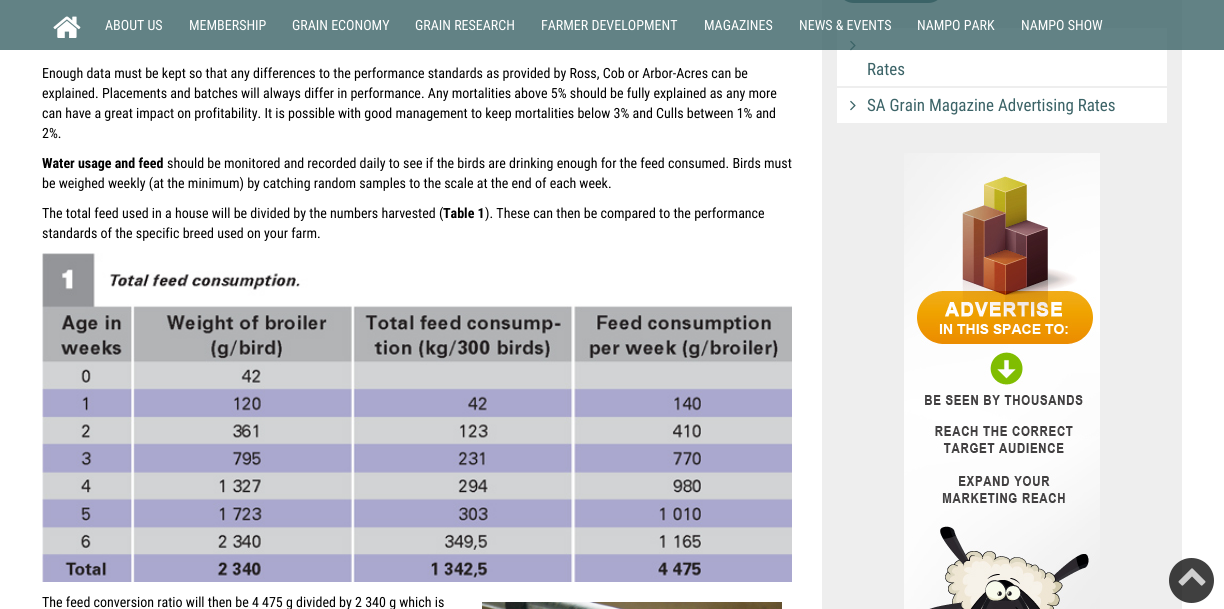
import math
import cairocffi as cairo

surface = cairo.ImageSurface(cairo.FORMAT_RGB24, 1224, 609)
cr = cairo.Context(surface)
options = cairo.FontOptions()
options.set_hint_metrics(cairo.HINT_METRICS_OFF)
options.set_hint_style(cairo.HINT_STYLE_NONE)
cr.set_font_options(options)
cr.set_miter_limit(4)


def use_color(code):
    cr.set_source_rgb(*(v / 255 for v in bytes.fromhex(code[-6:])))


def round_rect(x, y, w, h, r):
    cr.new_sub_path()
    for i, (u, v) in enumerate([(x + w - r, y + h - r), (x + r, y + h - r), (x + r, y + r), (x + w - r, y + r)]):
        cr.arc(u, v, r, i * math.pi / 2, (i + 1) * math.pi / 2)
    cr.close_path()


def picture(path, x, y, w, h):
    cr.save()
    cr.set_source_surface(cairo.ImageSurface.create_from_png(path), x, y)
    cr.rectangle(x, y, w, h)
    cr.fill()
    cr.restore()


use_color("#ffffff")
cr.paint()
use_color("#eeeeee")
cr.rectangle(822, 0, 360, 609)
cr.fill()
use_color("#3b6367")
round_rect(837, -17, 108, 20, 17)
cr.fill()
use_color("#ffffff")
cr.rectangle(837, 28, 330, 58)
cr.fill()
picture("img4.png", 850, 40, 6, 11)
cr.set_source_rgba(0.231, 0.388, 0.404, 0.8)
cr.rectangle(0, 0, 1224, 50)
cr.fill()
picture("img1.png", 53, 16, 28, 22)
cr.select_font_face("Roboto Condensed")
cr.set_font_size(14)
use_color("#ffffff")
cr.move_to(105, 30)
cr.show_text("ABOUT US")
cr.move_to(189, 30)
cr.show_text("MEMBERSHIP")
cr.move_to(292, 30)
cr.show_text("GRAIN ECONOMY")
cr.move_to(415, 30)
cr.show_text("GRAIN RESEARCH")
cr.move_to(541, 30)
cr.show_text("FARMER DEVELOPMENT")
cr.move_to(704, 30)
cr.show_text("MAGAZINES")
cr.move_to(799, 30)
cr.show_text("NEWS & EVENTS")
cr.move_to(917, 30)
cr.show_text("NAMPO PARK")
cr.move_to(1021, 30)
cr.show_text("NAMPO SHOW")
use_color("#000000")
cr.move_to(42, 78)
cr.show_text("Enough data must be kept so that any differences to the performance standards as provided by Ross, Cob or Arbor-Acres can be")
cr.move_to(42, 98)
cr.show_text("explained. Placements and batches will always differ in performance. Any mortalities above 5% should be fully explained as any more")
cr.move_to(42, 118)
cr.show_text("can have a great impact on profitability. It is possible with good management to keep mortalities below 3% and Culls between 1% and")
cr.move_to(42, 138)
cr.show_text("2%.")
cr.select_font_face("Roboto Condensed", cairo.FONT_SLANT_NORMAL, cairo.FONT_WEIGHT_BOLD)
cr.move_to(42, 168)
cr.show_text("Water usage and feed")
cr.select_font_face("Roboto Condensed")
cr.move_to(167, 168)
cr.show_text("should be monitored and recorded daily to see if the birds are drinking enough for the feed consumed. Birds must")
cr.move_to(42, 188)
cr.show_text("be weighed weekly (at the minimum) by catching random samples to the scale at the end of each week.")
cr.move_to(42, 218)
cr.show_text("The total feed used in a house will be divided by the numbers harvested (")
cr.select_font_face("Roboto Condensed", cairo.FONT_SLANT_NORMAL, cairo.FONT_WEIGHT_BOLD)
cr.move_to(443, 218)
cr.show_text("Table 1")
cr.select_font_face("Roboto Condensed")
cr.move_to(485, 218)
cr.show_text("). These can then be compared to the performance")
cr.move_to(42, 238)
cr.show_text("standards of the specific breed used on your farm.")
picture("img2.png", 42, 253, 750, 329)
cr.move_to(42, 607)
cr.show_text("The feed conversion ratio will then be 4 475 g divided by 2 340 g which is")
picture("img3.png", 482, 602, 300, 7)
cr.set_font_size(17)
use_color("#3b6367")
cr.move_to(867, 75)
cr.show_text("Rates")
use_color("#ffffff")
cr.rectangle(837, 88, 330, 35)
cr.fill()
picture("img4.png", 850, 100, 6, 11)
use_color("#3b6367")
cr.move_to(867, 111)
cr.show_text("SA Grain Magazine Advertising Rates")
picture("img5.png", 904, 153, 196, 456)
cr.set_source_rgba(0, 0, 0, 0.75)
cr.arc(1191.5, 580.5, 22.5, 0, 2 * math.pi)
cr.fill()
picture("img6.png", 1178, 568, 28, 18)
surface.write_to_png("result.png")
